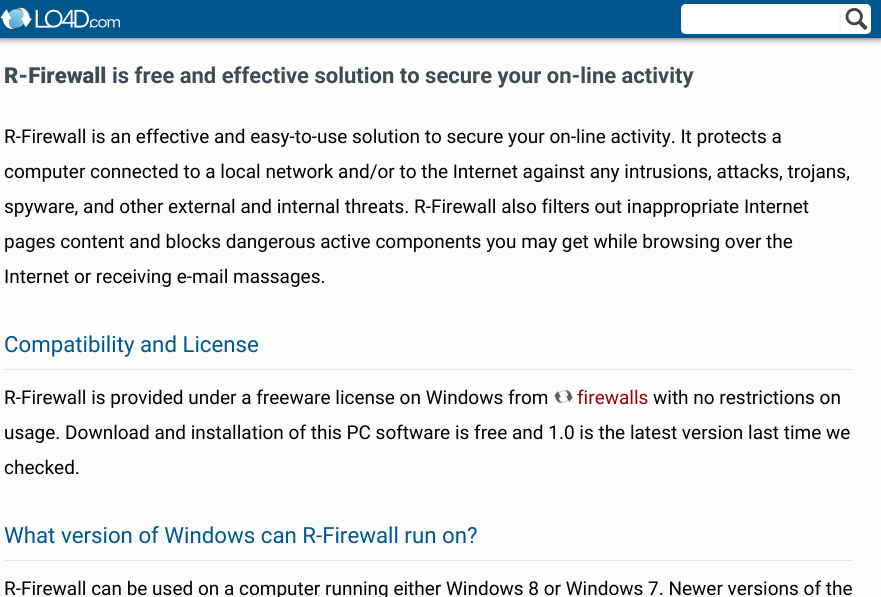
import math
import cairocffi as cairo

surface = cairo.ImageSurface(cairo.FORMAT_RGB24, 881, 597)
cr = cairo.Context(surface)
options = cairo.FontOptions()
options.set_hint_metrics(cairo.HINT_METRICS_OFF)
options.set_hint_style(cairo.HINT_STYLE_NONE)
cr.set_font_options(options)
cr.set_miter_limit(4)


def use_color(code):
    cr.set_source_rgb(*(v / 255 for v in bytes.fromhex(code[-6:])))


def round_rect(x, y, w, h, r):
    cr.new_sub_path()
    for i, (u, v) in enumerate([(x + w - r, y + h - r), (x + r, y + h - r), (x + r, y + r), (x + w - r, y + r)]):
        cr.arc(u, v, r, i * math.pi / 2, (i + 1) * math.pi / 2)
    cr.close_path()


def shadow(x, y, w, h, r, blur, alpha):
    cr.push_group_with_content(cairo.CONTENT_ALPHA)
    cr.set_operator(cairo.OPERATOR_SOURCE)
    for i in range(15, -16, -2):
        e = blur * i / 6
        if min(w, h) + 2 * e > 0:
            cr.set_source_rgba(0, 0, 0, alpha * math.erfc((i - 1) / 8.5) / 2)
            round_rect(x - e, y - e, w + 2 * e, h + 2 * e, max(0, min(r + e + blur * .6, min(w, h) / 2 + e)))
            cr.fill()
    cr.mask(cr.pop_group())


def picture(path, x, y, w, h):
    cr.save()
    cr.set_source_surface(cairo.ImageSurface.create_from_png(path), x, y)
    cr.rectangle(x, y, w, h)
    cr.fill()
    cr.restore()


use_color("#fcfcfc")
cr.paint()
use_color("#6e6e6e")
shadow(0, 1, 881, 38, 0, 3, 1)
use_color("#00578f")
cr.rectangle(0, 0, 881, 38)
cr.fill()
picture("img1.png", 0, 7, 120, 22)
use_color("#ffffff")
cr.new_path()
cr.move_to(686, 4)
cr.line_to(841, 4)
cr.line_to(841, 34)
cr.line_to(686, 34)
cr.curve_to(683, 34, 681, 32, 681, 29)
cr.line_to(681, 9)
cr.curve_to(681, 6, 683, 4, 686, 4)
cr.close_path()
cr.fill()
cr.save()
cr.new_path()
cr.move_to(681, 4)
cr.line_to(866, 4)
cr.curve_to(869, 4, 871, 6, 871, 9)
cr.line_to(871, 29)
cr.curve_to(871, 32, 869, 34, 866, 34)
cr.line_to(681, 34)
cr.close_path()
cr.clip()
use_color("#000000")
shadow(841, 5, 33, 30, 5, 2, 0.15)
cr.restore()
cr.save()
cr.new_path()
cr.move_to(681, 4)
cr.line_to(866, 4)
cr.curve_to(869, 4, 871, 6, 871, 9)
cr.line_to(871, 29)
cr.curve_to(871, 32, 869, 34, 866, 34)
cr.line_to(681, 34)
cr.close_path()
cr.clip()
cr.new_path()
cr.move_to(841, 4)
cr.line_to(869, 4)
cr.curve_to(872, 4, 874, 6, 874, 9)
cr.line_to(874, 29)
cr.curve_to(874, 32, 872, 34, 869, 34)
cr.line_to(841, 34)
cr.close_path()
cr.fill()
cr.restore()
picture("img2.png", 845, 8, 23, 22)
cr.select_font_face("Roboto Black")
cr.set_font_size(22)
use_color("#3e4b53")
cr.move_to(4, 83)
cr.show_text("R-Firewall")
cr.select_font_face("Roboto", cairo.FONT_SLANT_NORMAL, cairo.FONT_WEIGHT_BOLD)
cr.move_to(112, 83)
cr.show_text("is free and effective solution to secure your on-line activity")
cr.select_font_face("Roboto")
cr.set_font_size(19)
use_color("#000000")
cr.move_to(4, 143)
cr.show_text("R-Firewall is an effective and easy-to-use solution to secure your on-line activity. It protects a")
cr.move_to(4, 178)
cr.show_text("computer connected to a local network and/or to the Internet against any intrusions, attacks, trojans,")
cr.move_to(4, 213)
cr.show_text("spyware, and other external and internal threats. R-Firewall also filters out inappropriate Internet")
cr.move_to(4, 248)
cr.show_text("pages content and blocks dangerous active components you may get while browsing over the")
cr.move_to(4, 283)
cr.show_text("Internet or receiving e-mail massages.")
use_color("#e3e7e8")
cr.rectangle(4, 369, 849, 1)
cr.fill()
cr.set_font_size(22.25)
use_color("#00578f")
cr.move_to(4, 352)
cr.show_text("Compatibility and License")
cr.set_font_size(19)
use_color("#000000")
cr.move_to(4, 404)
cr.show_text("R-Firewall is provided under a freeware license on Windows from")
cr.select_font_face("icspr")
use_color("#626262")
cr.move_to(554, 406)
cr.show_text("4")
cr.select_font_face("Roboto")
use_color("#9d0000")
cr.move_to(577, 404)
cr.show_text("firewalls")
use_color("#000000")
cr.move_to(653, 404)
cr.show_text("with no restrictions on")
cr.move_to(4, 439)
cr.show_text("usage. Download and installation of this PC software is free and 1.0 is the latest version last time we")
cr.move_to(4, 474)
cr.show_text("checked.")
use_color("#e3e7e8")
cr.rectangle(4, 560, 849, 1)
cr.fill()
cr.set_font_size(22.25)
use_color("#00578f")
cr.move_to(4, 543)
cr.show_text("What version of Windows can R-Firewall run on?")
cr.set_font_size(19)
use_color("#000000")
cr.move_to(4, 595)
cr.show_text("R-Firewall can be used on a computer running either Windows 8 or Windows 7. Newer versions of the")
surface.write_to_png("result.png")
